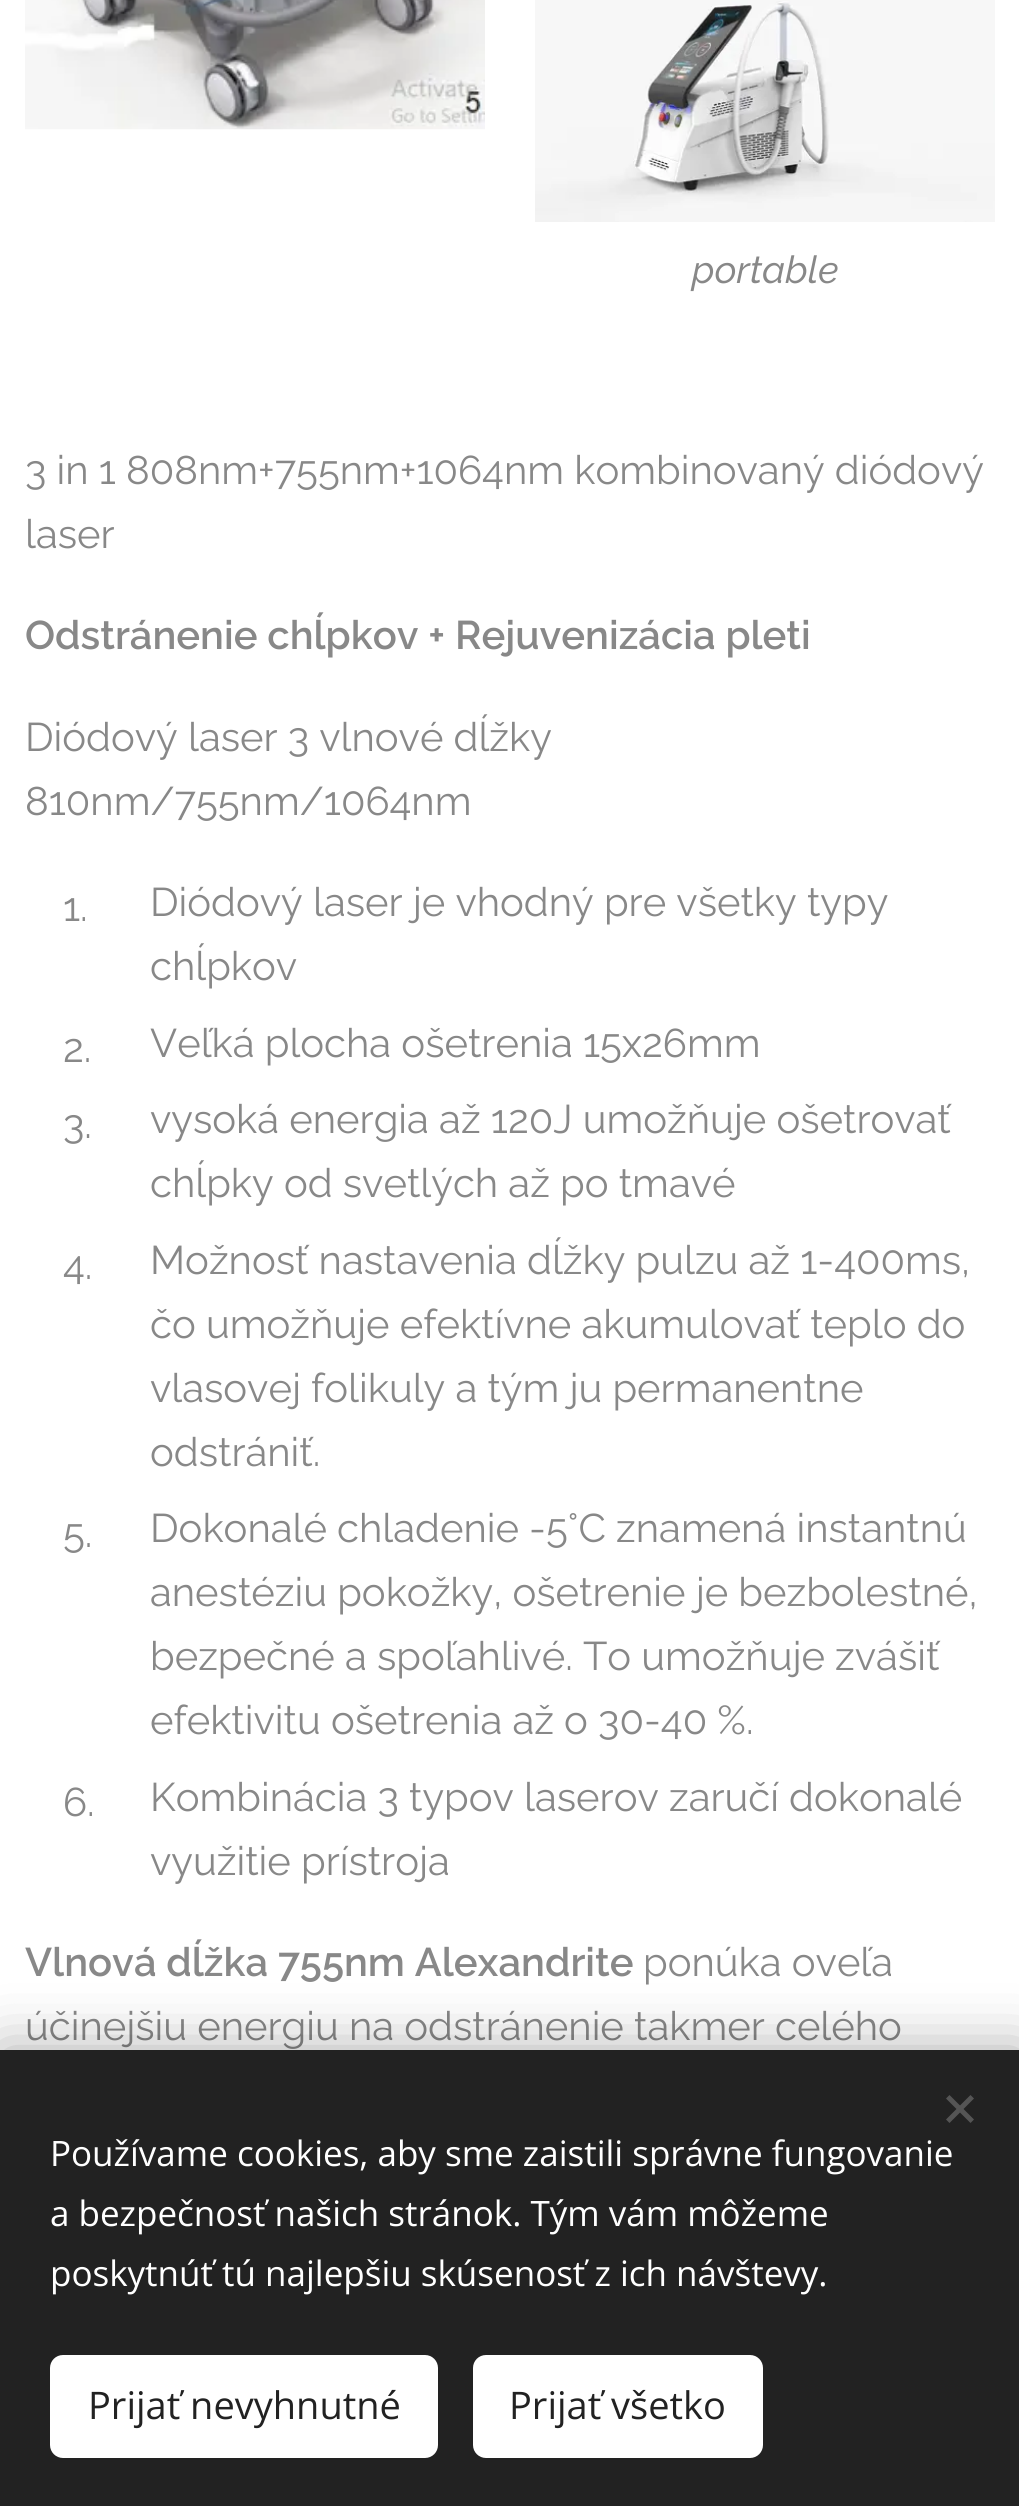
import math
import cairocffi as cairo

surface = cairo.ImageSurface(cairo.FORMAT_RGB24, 1019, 2506)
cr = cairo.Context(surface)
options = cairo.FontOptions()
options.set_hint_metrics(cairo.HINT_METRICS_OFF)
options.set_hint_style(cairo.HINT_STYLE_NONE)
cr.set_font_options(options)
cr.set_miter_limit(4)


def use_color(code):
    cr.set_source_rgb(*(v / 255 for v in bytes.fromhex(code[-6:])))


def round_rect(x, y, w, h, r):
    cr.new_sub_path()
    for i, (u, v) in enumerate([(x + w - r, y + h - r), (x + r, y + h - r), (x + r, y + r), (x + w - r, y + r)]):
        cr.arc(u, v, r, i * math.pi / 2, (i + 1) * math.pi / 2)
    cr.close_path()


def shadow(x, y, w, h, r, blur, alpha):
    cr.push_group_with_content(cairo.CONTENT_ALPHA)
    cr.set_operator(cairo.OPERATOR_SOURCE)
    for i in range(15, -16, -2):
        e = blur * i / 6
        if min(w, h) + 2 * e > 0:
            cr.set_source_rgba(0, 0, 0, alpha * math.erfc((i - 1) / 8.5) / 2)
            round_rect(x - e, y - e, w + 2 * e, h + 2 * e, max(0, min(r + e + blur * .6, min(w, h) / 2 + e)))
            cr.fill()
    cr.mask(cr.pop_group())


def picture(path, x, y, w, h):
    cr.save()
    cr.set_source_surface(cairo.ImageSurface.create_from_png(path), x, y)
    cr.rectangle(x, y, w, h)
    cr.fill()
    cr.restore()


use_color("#ffffff")
cr.paint()
picture("img1.png", 25, 0, 460, 130)
picture("img2.png", 535, 0, 460, 222)
cr.select_font_face("Raleway", cairo.FONT_SLANT_ITALIC)
cr.set_font_size(38)
use_color("#888888")
cr.move_to(692, 283)
cr.show_text("portable")
cr.select_font_face("Raleway")
cr.set_font_size(40)
cr.move_to(25, 484)
cr.show_text("3 in 1 808nm+755nm+1064nm kombinovaný diódový")
cr.move_to(25, 548)
cr.show_text("laser")
cr.select_font_face("Raleway SemiBold")
cr.move_to(25, 649)
cr.show_text("Odstránenie chĺpkov + Rejuvenizácia pleti")
cr.select_font_face("Raleway")
cr.move_to(25, 751)
cr.show_text("Diódový laser 3 vlnové dĺžky")
cr.move_to(25, 815)
cr.show_text("810nm/755nm/1064nm")
cr.move_to(63, 921)
cr.show_text("1.")
cr.move_to(150, 916)
cr.show_text("Diódový laser je vhodný pre všetky typy")
cr.move_to(150, 980)
cr.show_text("chĺpkov")
cr.move_to(63, 1062)
cr.show_text("2.")
cr.move_to(150, 1057)
cr.show_text("Veľká plocha ošetrenia 15x26mm")
cr.move_to(63, 1138)
cr.show_text("3.")
cr.move_to(150, 1133)
cr.show_text("vysoká energia až 120J umožňuje ošetrovať")
cr.move_to(150, 1197)
cr.show_text("chĺpky od svetlých až po tmavé")
cr.move_to(63, 1279)
cr.show_text("4.")
cr.move_to(150, 1274)
cr.show_text("Možnosť nastavenia dĺžky pulzu až 1-400ms,")
cr.move_to(150, 1338)
cr.show_text("čo umožňuje efektívne akumulovať teplo do")
cr.move_to(150, 1402)
cr.show_text("vlasovej folikuly a tým ju permanentne")
cr.move_to(150, 1466)
cr.show_text("odstrániť.")
cr.move_to(63, 1547)
cr.show_text("5.")
cr.move_to(150, 1542)
cr.show_text("Dokonalé chladenie -5°C znamená instantnú")
cr.move_to(150, 1606)
cr.show_text("anestéziu pokožky, ošetrenie je bezbolestné,")
cr.move_to(150, 1670)
cr.show_text("bezpečné a spoľahlivé. To umožňuje zvášiť")
cr.move_to(150, 1734)
cr.show_text("efektivitu ošetrenia až o 30-40 %.")
cr.move_to(63, 1816)
cr.show_text("6.")
cr.move_to(150, 1811)
cr.show_text("Kombinácia 3 typov laserov zaručí dokonalé")
cr.move_to(150, 1875)
cr.show_text("využitie prístroja")
cr.select_font_face("Raleway SemiBold")
cr.move_to(25, 1976)
cr.show_text("Vlnová dĺžka 755nm Alexandrite")
cr.select_font_face("Raleway")
cr.move_to(643, 1976)
cr.show_text("ponúka oveľa")
cr.move_to(25, 2040)
cr.show_text("účinejšiu energiu na odstránenie takmer celého")
use_color("#000000")
shadow(0, 2050, 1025, 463, 0, 31, 0.33)
use_color("#222222")
cr.rectangle(0, 2050, 1019, 456)
cr.fill()
use_color("#555555")
cr.new_path()
cr.move_to(946, 2119.5)
cr.line_to(970.5, 2095)
cr.line_to(974, 2098.5)
cr.line_to(949.5, 2123)
cr.close_path()
cr.fill()
cr.new_path()
cr.move_to(949.5, 2095)
cr.line_to(974, 2119.5)
cr.line_to(970.5, 2123)
cr.line_to(946, 2098.5)
cr.close_path()
cr.fill()
cr.select_font_face("Open Sans")
cr.set_font_size(35)
use_color("#ffffff")
cr.move_to(50, 2166)
cr.show_text("Používame cookies, aby sme zaistili správne fungovanie")
cr.move_to(50, 2226)
cr.show_text("a bezpečnosť našich stránok. Tým vám môžeme")
cr.move_to(50, 2286)
cr.show_text("poskytnúť tú najlepšiu skúsenosť z ich návštevy.")
round_rect(50, 2355, 388, 103, 13)
cr.fill()
cr.set_font_size(38)
use_color("#222222")
cr.move_to(88, 2419)
cr.show_text("Prijať nevyhnutné")
use_color("#ffffff")
round_rect(473, 2355, 290, 103, 13)
cr.fill()
use_color("#222222")
cr.move_to(509, 2419)
cr.show_text("Prijať všetko")
surface.write_to_png("result.png")
